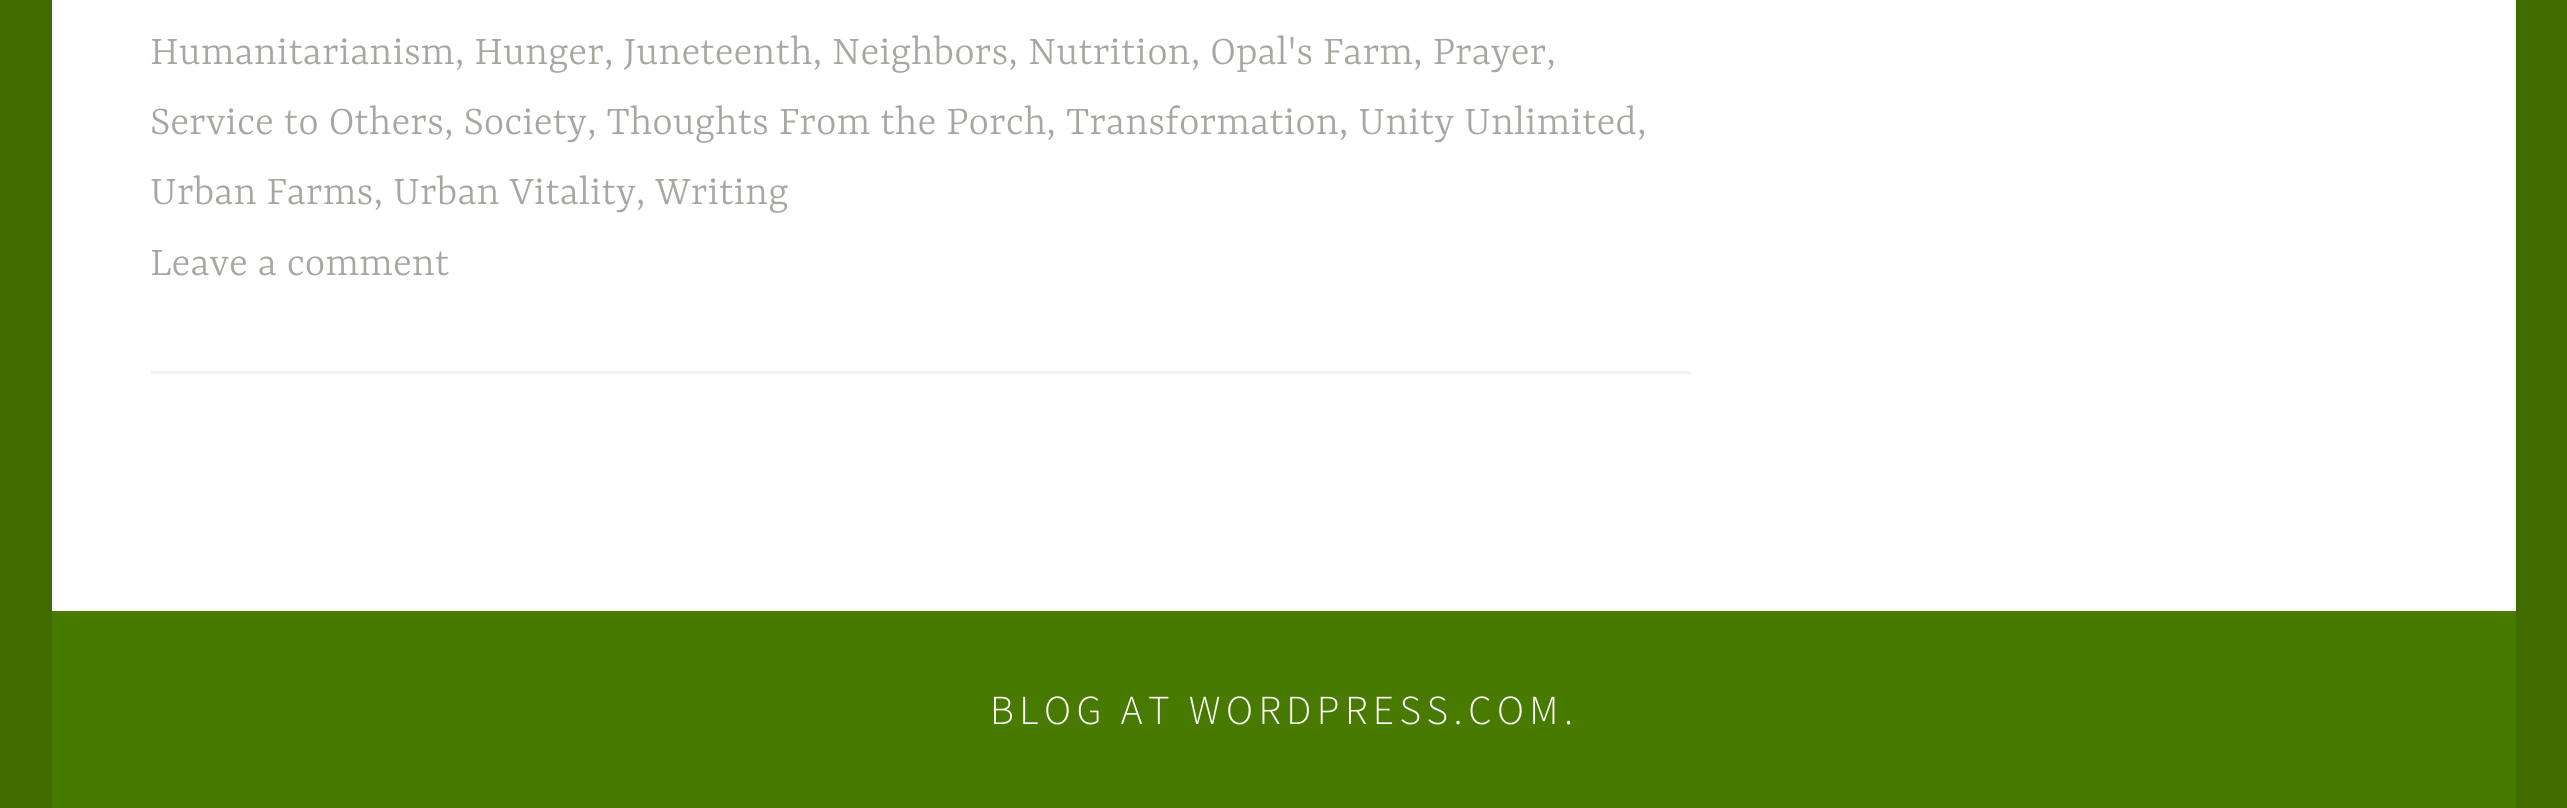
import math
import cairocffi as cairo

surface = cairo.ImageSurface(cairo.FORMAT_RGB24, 2567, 808)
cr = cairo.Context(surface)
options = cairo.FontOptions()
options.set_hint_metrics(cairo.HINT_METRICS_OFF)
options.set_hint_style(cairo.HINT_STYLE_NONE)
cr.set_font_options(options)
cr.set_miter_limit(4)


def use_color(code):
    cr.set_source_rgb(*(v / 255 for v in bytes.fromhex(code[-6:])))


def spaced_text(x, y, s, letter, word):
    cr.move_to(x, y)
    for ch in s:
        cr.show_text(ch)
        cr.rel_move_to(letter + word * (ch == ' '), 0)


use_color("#406c00")
cr.paint()
use_color("#ffffff")
cr.rectangle(52, 0, 2464, 611)
cr.fill()
cr.select_font_face("Yrsa Light")
cr.set_font_size(44)
use_color("#a8a6a1")
cr.move_to(150, 64)
cr.show_text("Humanitarianism, Hunger, Juneteenth, Neighbors, Nutrition, Opal's Farm, Prayer,")
cr.move_to(150, 134)
cr.show_text("Service to Others, Society, Thoughts From the Porch, Transformation, Unity Unlimited,")
cr.move_to(150, 204)
cr.show_text("Urban Farms, Urban Vitality, Writing")
cr.move_to(150, 275)
cr.show_text("Leave a comment")
use_color("#f2f2f2")
cr.rectangle(151, 371, 1540, 3)
cr.fill()
use_color("#497a00")
cr.rectangle(52, 611, 2464, 197)
cr.fill()
cr.select_font_face("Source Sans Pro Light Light")
cr.set_font_size(41.25)
use_color("#ffffff")
spaced_text(990, 724, "BLOG AT WORDPRESS.COM.", 5.5, 0)
surface.write_to_png("result.png")
